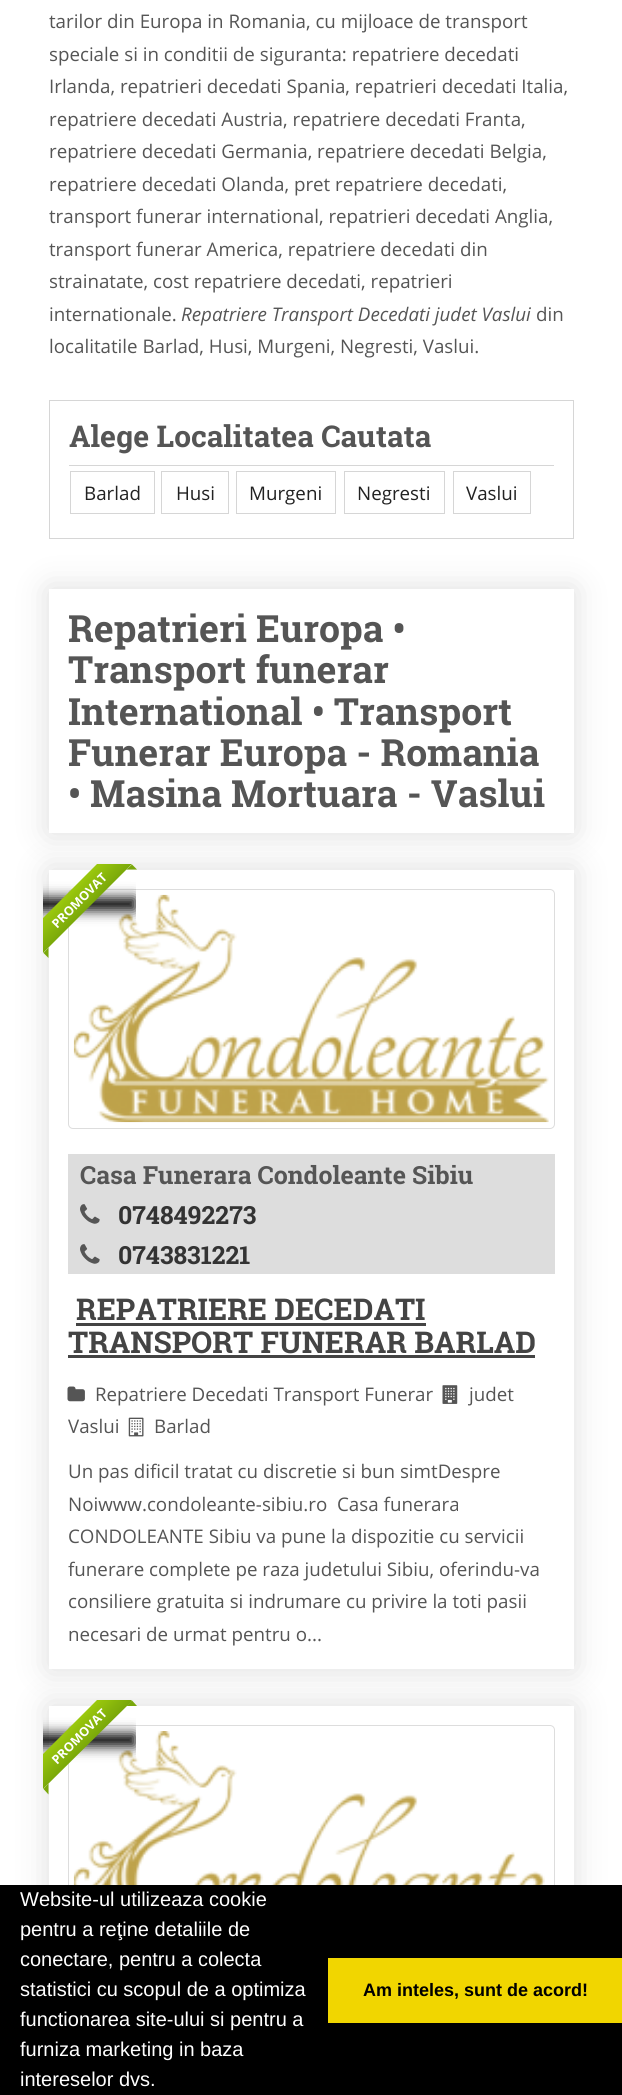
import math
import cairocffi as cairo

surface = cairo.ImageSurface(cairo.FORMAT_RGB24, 622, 2095)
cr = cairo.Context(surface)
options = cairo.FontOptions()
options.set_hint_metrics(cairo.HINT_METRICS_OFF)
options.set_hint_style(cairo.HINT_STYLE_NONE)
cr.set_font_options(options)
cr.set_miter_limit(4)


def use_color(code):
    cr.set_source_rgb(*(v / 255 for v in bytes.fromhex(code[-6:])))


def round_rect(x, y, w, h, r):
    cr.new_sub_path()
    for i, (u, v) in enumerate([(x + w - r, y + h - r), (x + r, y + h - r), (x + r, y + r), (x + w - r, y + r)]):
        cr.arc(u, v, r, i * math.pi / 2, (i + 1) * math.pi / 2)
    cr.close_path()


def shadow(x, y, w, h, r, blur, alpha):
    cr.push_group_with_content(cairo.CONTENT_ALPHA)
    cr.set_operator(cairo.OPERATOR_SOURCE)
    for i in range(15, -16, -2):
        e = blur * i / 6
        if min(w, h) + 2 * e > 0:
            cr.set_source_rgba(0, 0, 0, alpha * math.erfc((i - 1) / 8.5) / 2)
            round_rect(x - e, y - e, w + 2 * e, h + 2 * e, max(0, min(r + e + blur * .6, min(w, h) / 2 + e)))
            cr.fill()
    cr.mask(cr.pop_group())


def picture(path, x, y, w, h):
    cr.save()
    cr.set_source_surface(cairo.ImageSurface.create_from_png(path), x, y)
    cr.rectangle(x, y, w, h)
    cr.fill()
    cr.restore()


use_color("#ffffff")
cr.paint()
cr.select_font_face("Open Sans")
cr.set_font_size(18.75)
use_color("#555555")
cr.move_to(49, 28)
cr.show_text("tarilor din Europa in Romania, cu mijloace de transport")
cr.move_to(49, 61)
cr.show_text("speciale si in conditii de siguranta: repatriere decedati")
cr.move_to(49, 93)
cr.show_text("Irlanda, repatrieri decedati Spania, repatrieri decedati Italia,")
cr.move_to(49, 126)
cr.show_text("repatriere decedati Austria, repatriere decedati Franta,")
cr.move_to(49, 158)
cr.show_text("repatriere decedati Germania, repatriere decedati Belgia,")
cr.move_to(49, 191)
cr.show_text("repatriere decedati Olanda, pret repatriere decedati,")
cr.move_to(49, 223)
cr.show_text("transport funerar international, repatrieri decedati Anglia,")
cr.move_to(49, 256)
cr.show_text("transport funerar America, repatriere decedati din")
cr.move_to(49, 288)
cr.show_text("strainatate, cost repatriere decedati, repatrieri")
cr.move_to(49, 321)
cr.show_text("internationale.")
cr.select_font_face("Open Sans", cairo.FONT_SLANT_ITALIC)
cr.move_to(181, 321)
cr.show_text("Repatriere Transport Decedati judet Vaslui")
cr.select_font_face("Open Sans")
cr.move_to(536, 321)
cr.show_text("din")
cr.move_to(49, 353)
cr.show_text("localitatile Barlad, Husi, Murgeni, Negresti, Vaslui.")
cr.rectangle(49.5, 400.5, 524, 138)
use_color("#d6d6d6")
cr.set_line_width(1)
cr.stroke()
cr.rectangle(69, 465, 485, 1)
cr.fill()
cr.select_font_face("Roboto Slab", cairo.FONT_SLANT_NORMAL, cairo.FONT_WEIGHT_BOLD)
cr.set_font_size(30)
use_color("#555555")
cr.move_to(69, 447)
cr.show_text("Alege Localitatea Cautata")
cr.rectangle(70.5, 471.5, 84, 42)
use_color("#d6d6d6")
cr.stroke()
cr.select_font_face("Open Sans")
cr.set_font_size(18.75)
use_color("#222222")
cr.move_to(84, 500)
cr.show_text("Barlad")
cr.rectangle(161.5, 471.5, 67, 42)
use_color("#d6d6d6")
cr.stroke()
use_color("#222222")
cr.move_to(176, 500)
cr.show_text("Husi")
cr.rectangle(236.5, 471.5, 99, 42)
use_color("#d6d6d6")
cr.stroke()
use_color("#222222")
cr.move_to(249, 500)
cr.show_text("Murgeni")
cr.rectangle(344.5, 471.5, 100, 42)
use_color("#d6d6d6")
cr.stroke()
use_color("#222222")
cr.move_to(357, 500)
cr.show_text("Negresti")
cr.rectangle(453.5, 471.5, 77, 42)
use_color("#d6d6d6")
cr.stroke()
use_color("#222222")
cr.move_to(466, 500)
cr.show_text("Vaslui")
cr.save()
cr.set_fill_rule(cairo.FILL_RULE_EVEN_ODD)
cr.new_path()
cr.move_to(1, 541)
cr.line_to(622, 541)
cr.line_to(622, 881)
cr.line_to(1, 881)
cr.close_path()
cr.move_to(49, 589)
cr.line_to(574, 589)
cr.line_to(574, 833)
cr.line_to(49, 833)
cr.close_path()
cr.clip()
use_color("#dddddd")
shadow(49, 589, 525, 244, 0, 15.5, 1)
cr.restore()
cr.select_font_face("Roboto Slab", cairo.FONT_SLANT_NORMAL, cairo.FONT_WEIGHT_BOLD)
cr.set_font_size(37.5)
use_color("#555555")
cr.move_to(68, 642)
cr.show_text("Repatrieri Europa •")
cr.move_to(68, 683)
cr.show_text("Transport funerar")
cr.move_to(68, 725)
cr.show_text("International • Transport")
cr.move_to(68, 766)
cr.show_text("Funerar Europa - Romania")
cr.move_to(68, 807)
cr.show_text("• Masina Mortuara - Vaslui")
cr.save()
cr.set_fill_rule(cairo.FILL_RULE_EVEN_ODD)
cr.new_path()
cr.move_to(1, 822)
cr.line_to(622, 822)
cr.line_to(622, 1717)
cr.line_to(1, 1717)
cr.close_path()
cr.move_to(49, 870)
cr.line_to(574, 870)
cr.line_to(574, 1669)
cr.line_to(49, 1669)
cr.close_path()
cr.clip()
use_color("#dddddd")
shadow(49, 870, 525, 799, 0, 15.5, 1)
cr.restore()
round_rect(68.5, 889.5, 486, 239, 4.5)
use_color("#dddddd")
cr.stroke()
picture("img1.png", 73, 894, 476, 229)
cr.save()
cr.rectangle(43, 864, 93, 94)
cr.clip()
use_color("#000000")
shadow(23, 898, 112, 12, 0, 6.5, 1)
cr.restore()
cr.save()
cr.rectangle(43, 864, 93, 94)
cr.clip()
gradient = cairo.LinearGradient(70, 891, 88, 909)
gradient.add_color_stop_rgba(0, 0.608, 0.788, 0.051, 1)
gradient.add_color_stop_rgba(1, 0.475, 0.655, 0.039, 1)
cr.set_source(gradient)
cr.new_path()
cr.move_to(26, 935)
cr.line_to(114, 847)
cr.line_to(132, 864)
cr.line_to(43, 953)
cr.close_path()
cr.fill()
cr.restore()
use_color("#79a70a")
cr.new_path()
cr.move_to(126.5, 869.5)
cr.line_to(132, 864.5)
cr.line_to(132, 869.5)
cr.close_path()
cr.move_to(132, 864.5)
cr.line_to(137, 869.5)
cr.line_to(132, 869.5)
cr.close_path()
cr.fill()
cr.select_font_face("Open Sans", cairo.FONT_SLANT_NORMAL, cairo.FONT_WEIGHT_BOLD)
cr.set_font_size(12.5)
use_color("#ffffff")
cr.save()
cr.translate(57, 929)
cr.rotate(-45 * math.pi / 180)
cr.move_to(0, 0)
cr.show_text("PROMOVAT")
cr.restore()
use_color("#79a70a")
cr.new_path()
cr.move_to(43.5, 953)
cr.line_to(48.5, 947.5)
cr.line_to(48.5, 953)
cr.close_path()
cr.move_to(48.5, 958)
cr.line_to(43.5, 953)
cr.line_to(48.5, 953)
cr.close_path()
cr.fill()
use_color("#dddddd")
cr.rectangle(68, 1154, 487, 120)
cr.fill()
cr.select_font_face("Roboto Slab", cairo.FONT_SLANT_NORMAL, cairo.FONT_WEIGHT_BOLD)
cr.set_font_size(25)
use_color("#555555")
cr.move_to(80, 1184)
cr.show_text("Casa Funerara Condoleante Sibiu")
picture("img2.png", 80, 1204, 20, 20)
use_color("#333333")
cr.move_to(118, 1224)
cr.show_text("0748492273")
picture("img2.png", 80, 1244, 20, 20)
cr.move_to(118, 1264)
cr.show_text("0743831221")
cr.set_font_size(30)
use_color("#444444")
cr.move_to(76, 1320)
cr.show_text("REPATRIERE DECEDATI")
cr.rectangle(76, 1323, 350, 3)
cr.fill()
cr.move_to(68, 1353)
cr.show_text("TRANSPORT FUNERAR BARLAD")
cr.rectangle(68, 1355, 467, 3)
cr.fill()
picture("img3.png", 67, 1386, 18, 16)
cr.select_font_face("Open Sans")
cr.set_font_size(18.75)
use_color("#555555")
cr.move_to(95, 1401)
cr.show_text("Repatriere Decedati Transport Funerar")
picture("img4.png", 442, 1385, 16, 19)
cr.move_to(469, 1401)
cr.show_text("judet")
cr.move_to(68, 1433)
cr.show_text("Vaslui")
picture("img5.png", 128, 1417, 16, 20)
cr.move_to(154, 1433)
cr.show_text("Barlad")
cr.move_to(68, 1478)
cr.show_text("Un pas dificil tratat cu discretie si bun simtDespre")
cr.move_to(68, 1511)
cr.show_text("Noiwww.condoleante-sibiu.ro  Casa funerara")
cr.move_to(68, 1543)
cr.show_text("CONDOLEANTE Sibiu va pune la dispozitie cu servicii")
cr.move_to(68, 1576)
cr.show_text("funerare complete pe raza judetului Sibiu, oferindu-va")
cr.move_to(68, 1608)
cr.show_text("consiliere gratuita si indrumare cu privire la toti pasii")
cr.move_to(68, 1641)
cr.show_text("necesari de urmat pentru o...")
cr.save()
cr.set_fill_rule(cairo.FILL_RULE_EVEN_ODD)
cr.new_path()
cr.move_to(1, 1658)
cr.line_to(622, 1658)
cr.line_to(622, 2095)
cr.line_to(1, 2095)
cr.close_path()
cr.move_to(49, 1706)
cr.line_to(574, 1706)
cr.line_to(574, 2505)
cr.line_to(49, 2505)
cr.close_path()
cr.clip()
use_color("#dddddd")
shadow(49, 1706, 525, 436, 0, 15.5, 1)
cr.restore()
round_rect(68.5, 1725.5, 486, 239, 4.5)
use_color("#dddddd")
cr.stroke()
picture("img6.png", 73, 1731, 472, 154)
cr.save()
cr.rectangle(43, 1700, 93, 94)
cr.clip()
use_color("#000000")
shadow(23, 1734, 112, 12, 0, 6.5, 1)
cr.restore()
cr.save()
cr.rectangle(43, 1700, 93, 94)
cr.clip()
gradient = cairo.LinearGradient(70, 1727, 88, 1745)
gradient.add_color_stop_rgba(0, 0.608, 0.788, 0.051, 1)
gradient.add_color_stop_rgba(1, 0.475, 0.655, 0.039, 1)
cr.set_source(gradient)
cr.new_path()
cr.move_to(26, 1771)
cr.line_to(114, 1683)
cr.line_to(132, 1701)
cr.line_to(43, 1789)
cr.close_path()
cr.fill()
cr.restore()
use_color("#79a70a")
cr.new_path()
cr.move_to(126.5, 1706)
cr.line_to(132, 1700.5)
cr.line_to(132, 1706)
cr.close_path()
cr.move_to(132, 1700.5)
cr.line_to(137, 1706)
cr.line_to(132, 1706)
cr.close_path()
cr.fill()
cr.select_font_face("Open Sans", cairo.FONT_SLANT_NORMAL, cairo.FONT_WEIGHT_BOLD)
cr.set_font_size(12.5)
use_color("#ffffff")
cr.save()
cr.translate(57, 1765)
cr.rotate(-45 * math.pi / 180)
cr.move_to(0, 0)
cr.show_text("PROMOVAT")
cr.restore()
use_color("#79a70a")
cr.new_path()
cr.move_to(43.5, 1789)
cr.line_to(48.5, 1783.5)
cr.line_to(48.5, 1789)
cr.close_path()
cr.move_to(48.5, 1794.5)
cr.line_to(43.5, 1789)
cr.line_to(48.5, 1789)
cr.close_path()
cr.fill()
use_color("#000000")
cr.rectangle(0, 1885, 622, 210)
cr.fill()
cr.select_font_face("Liberation Sans")
cr.set_font_size(20)
use_color("#ffffff")
cr.move_to(20, 1906)
cr.show_text("Website-ul utilizeaza cookie")
cr.move_to(20, 1936)
cr.show_text("pentru a reţine detaliile de")
cr.move_to(20, 1966)
cr.show_text("conectare, pentru a colecta")
cr.move_to(20, 1996)
cr.show_text("statistici cu scopul de a optimiza")
cr.move_to(20, 2026)
cr.show_text("functionarea site-ului si pentru a")
cr.move_to(20, 2056)
cr.show_text("furniza marketing in baza")
cr.move_to(20, 2086)
cr.show_text("intereselor dvs.")
use_color("#f1d600")
cr.rectangle(328, 1958, 294, 65)
cr.fill()
cr.select_font_face("Liberation Sans", cairo.FONT_SLANT_NORMAL, cairo.FONT_WEIGHT_BOLD)
cr.set_font_size(18)
use_color("#000000")
cr.move_to(363, 1996)
cr.show_text("Am inteles, sunt de acord!")
surface.write_to_png("result.png")
